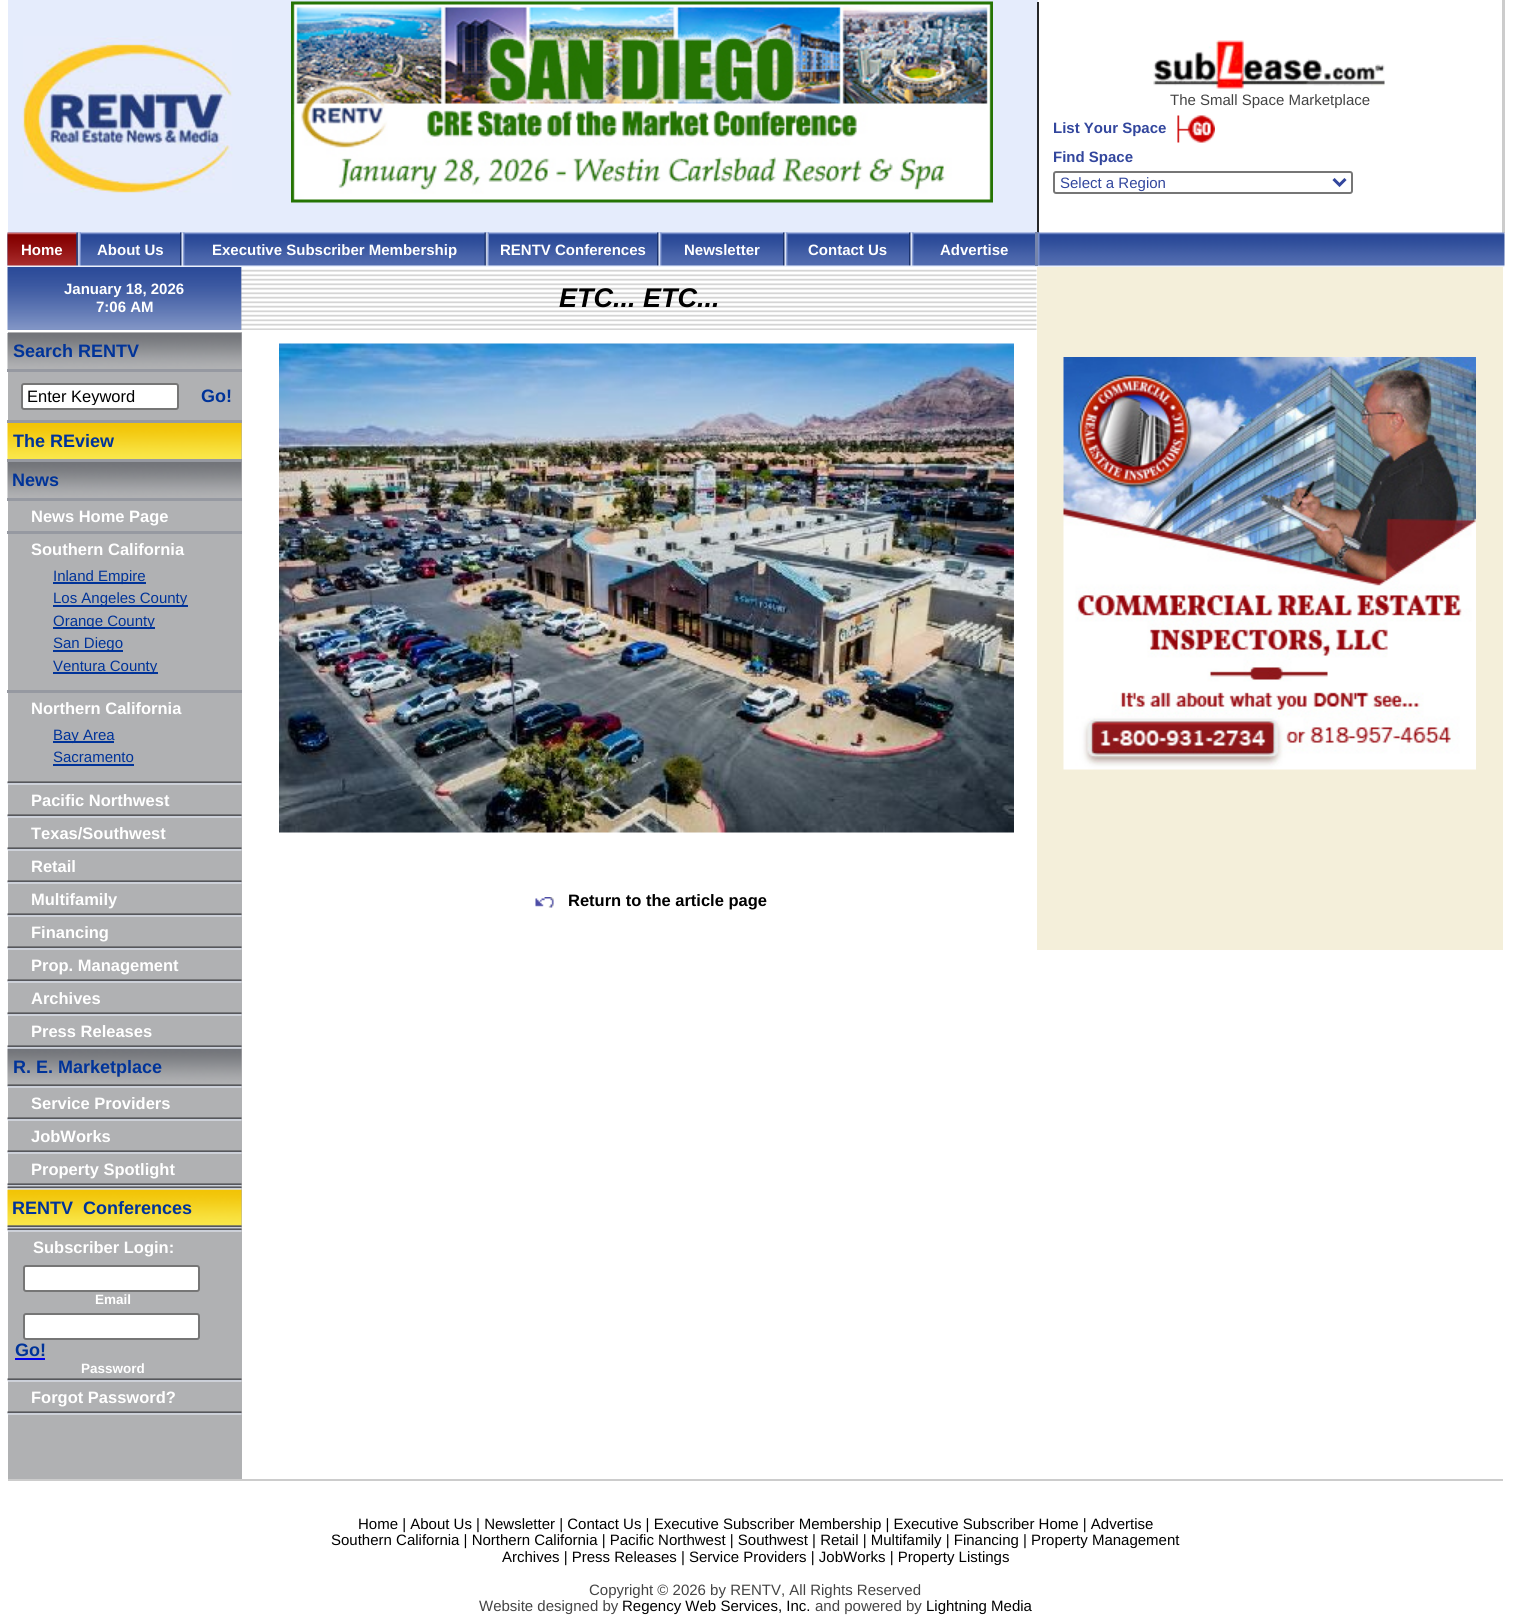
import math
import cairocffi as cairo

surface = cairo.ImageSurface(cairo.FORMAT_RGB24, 1515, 1624)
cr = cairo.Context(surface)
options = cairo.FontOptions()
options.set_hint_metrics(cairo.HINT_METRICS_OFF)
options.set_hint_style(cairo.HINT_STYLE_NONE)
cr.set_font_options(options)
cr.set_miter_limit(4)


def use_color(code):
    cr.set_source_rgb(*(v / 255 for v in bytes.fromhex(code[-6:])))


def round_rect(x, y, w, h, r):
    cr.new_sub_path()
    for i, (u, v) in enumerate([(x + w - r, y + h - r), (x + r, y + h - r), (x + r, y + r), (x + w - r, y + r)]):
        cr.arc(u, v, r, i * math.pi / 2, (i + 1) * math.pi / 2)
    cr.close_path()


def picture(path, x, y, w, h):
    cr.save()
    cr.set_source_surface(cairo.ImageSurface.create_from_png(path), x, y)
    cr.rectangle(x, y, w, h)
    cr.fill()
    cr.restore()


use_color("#ffffff")
cr.paint()
use_color("#e5ecfc")
cr.rectangle(8, 0, 1030, 233)
cr.fill()
picture("img1.png", 22, 36, 211, 157)
picture("img2.png", 291, 1, 702, 202)
use_color("#262729")
cr.rectangle(1037, 2, 2, 231)
cr.fill()
picture("img3.png", 1153, 40, 232, 49)
cr.select_font_face("Liberation Sans")
cr.set_font_size(15)
use_color("#444444")
cr.move_to(1170, 105)
cr.show_text("The Small Space Marketplace")
cr.select_font_face("Liberation Sans", cairo.FONT_SLANT_NORMAL, cairo.FONT_WEIGHT_BOLD)
use_color("#32469d")
cr.move_to(1053, 133)
cr.show_text("List Your Space")
picture("img4.png", 1177, 115, 38, 28)
cr.move_to(1053, 162)
cr.show_text("Find Space")
round_rect(1054, 172, 298, 21, 2)
use_color("#767676")
cr.stroke()
cr.new_path()
cr.move_to(1333.5, 179)
cr.line_to(1339.5, 185)
cr.line_to(1345.5, 179)
use_color("#32469d")
cr.set_line_width(3)
cr.stroke()
cr.select_font_face("Liberation Sans")
cr.move_to(1060, 188)
cr.show_text("Select a Region")
use_color("#cccccc")
cr.rectangle(1502, 0, 3, 233)
cr.fill()
picture("img5.png", 7, 232, 1031, 35)
picture("img6.png", 7, 232, 70, 35)
cr.select_font_face("Liberation Sans", cairo.FONT_SLANT_NORMAL, cairo.FONT_WEIGHT_BOLD)
use_color("#ffffff")
cr.move_to(21, 255)
cr.show_text("Home")
picture("img7.png", 76, 232, 5, 34)
cr.move_to(97, 255)
cr.show_text("About Us")
picture("img8.png", 180, 232, 5, 34)
cr.move_to(212, 255)
cr.show_text("Executive Subscriber Membership")
picture("img9.png", 484, 232, 5, 34)
cr.move_to(500, 255)
cr.show_text("RENTV Conferences")
picture("img10.png", 657, 232, 5, 34)
cr.move_to(684, 255)
cr.show_text("Newsletter")
picture("img10.png", 783, 232, 5, 34)
cr.move_to(808, 255)
cr.show_text("Contact Us")
picture("img10.png", 909, 232, 5, 34)
cr.move_to(940, 255)
cr.show_text("Advertise")
use_color("#7685ab")
cr.rectangle(1035, 232, 3, 34)
cr.fill()
picture("img11.png", 1038, 232, 467, 35)
picture("img12.png", 1038, 232, 2, 34)
use_color("#b0b1b3")
cr.rectangle(8, 267, 234, 1212)
cr.fill()
picture("img13.png", 7, 267, 235, 63)
use_color("#ffffff")
cr.move_to(64, 294)
cr.show_text("January 18, 2026")
cr.move_to(96, 312)
cr.show_text("7:06 AM")
cr.rectangle(8, 330, 234, 2)
cr.fill()
picture("img14.png", 7, 333, 235, 36)
cr.set_font_size(18)
use_color("#003399")
cr.move_to(13, 357)
cr.show_text("Search RENTV")
use_color("#9699a1")
cr.rectangle(7, 369, 235, 3)
cr.fill()
use_color("#ffffff")
round_rect(22, 384, 156, 25, 2)
cr.fill_preserve()
use_color("#767676")
cr.set_line_width(2)
cr.stroke()
cr.save()
cr.rectangle(27, 387, 146, 18)
cr.clip()
cr.select_font_face("Liberation Sans")
cr.set_font_size(16.5)
use_color("#000000")
cr.move_to(27, 402)
cr.show_text("Enter Keyword")
cr.restore()
use_color("#003399")
cr.move_to(201, 402)
cr.show_text("Go!")
use_color("#9699a1")
cr.rectangle(7, 420, 235, 3)
cr.fill()
picture("img15.png", 7, 423, 235, 36)
use_color("#003399")
cr.move_to(13, 447)
cr.show_text("The REview")
use_color("#9699a1")
cr.rectangle(7, 459, 235, 3)
cr.fill()
picture("img16.png", 7, 462, 235, 36)
use_color("#003399")
cr.move_to(12, 486)
cr.show_text("News")
use_color("#9699a1")
cr.rectangle(7, 498, 235, 3)
cr.fill()
cr.set_font_size(16.5)
use_color("#ffffff")
cr.move_to(31, 522)
cr.show_text("News Home Page")
use_color("#9699a1")
cr.rectangle(7, 531, 235, 3)
cr.fill()
use_color("#ffffff")
cr.move_to(31, 555)
cr.show_text("Southern California")
use_color("#003399")
cr.rectangle(53, 582, 93, 2)
cr.fill()
cr.select_font_face("Liberation Sans")
cr.set_font_size(15)
cr.move_to(53, 581)
cr.show_text("Inland Empire")
cr.rectangle(53, 605, 135, 2)
cr.fill()
cr.move_to(53, 603)
cr.show_text("Los Angeles County")
cr.rectangle(53, 627, 102, 2)
cr.fill()
cr.move_to(53, 626)
cr.show_text("Orange County")
cr.rectangle(53, 650, 70, 2)
cr.fill()
cr.move_to(53, 648)
cr.show_text("San Diego")
cr.rectangle(53, 672, 105, 2)
cr.fill()
cr.move_to(53, 671)
cr.show_text("Ventura County")
use_color("#9699a1")
cr.rectangle(7, 690, 235, 3)
cr.fill()
cr.select_font_face("Liberation Sans", cairo.FONT_SLANT_NORMAL, cairo.FONT_WEIGHT_BOLD)
cr.set_font_size(16.5)
use_color("#ffffff")
cr.move_to(31, 714)
cr.show_text("Northern California")
use_color("#003399")
cr.rectangle(53, 741, 61, 2)
cr.fill()
cr.select_font_face("Liberation Sans")
cr.set_font_size(15)
cr.move_to(53, 740)
cr.show_text("Bay Area")
cr.move_to(53, 762)
cr.show_text("Sacramento")
cr.rectangle(53, 764, 81, 2)
cr.fill()
picture("img17.png", 7, 781, 235, 4)
cr.select_font_face("Liberation Sans", cairo.FONT_SLANT_NORMAL, cairo.FONT_WEIGHT_BOLD)
cr.set_font_size(16.5)
use_color("#ffffff")
cr.move_to(31, 806)
cr.show_text("Pacific Northwest")
picture("img17.png", 7, 814, 235, 4)
cr.move_to(31, 839)
cr.show_text("Texas/Southwest")
picture("img17.png", 7, 847, 235, 4)
cr.move_to(31, 872)
cr.show_text("Retail")
picture("img17.png", 7, 880, 235, 4)
cr.move_to(31, 905)
cr.show_text("Multifamily")
picture("img17.png", 7, 913, 235, 4)
cr.move_to(31, 938)
cr.show_text("Financing")
picture("img17.png", 7, 946, 235, 4)
cr.move_to(31, 971)
cr.show_text("Prop. Management")
picture("img17.png", 7, 979, 235, 4)
cr.move_to(31, 1004)
cr.show_text("Archives")
picture("img17.png", 7, 1012, 235, 4)
cr.move_to(31, 1037)
cr.show_text("Press Releases")
picture("img19.png", 7, 1048, 235, 37)
picture("img18.png", 7, 1045, 235, 4)
cr.set_font_size(18)
use_color("#003399")
cr.move_to(13, 1073)
cr.show_text("R. E. Marketplace")
picture("img20.png", 7, 1084, 235, 4)
cr.set_font_size(16.5)
use_color("#ffffff")
cr.move_to(31, 1109)
cr.show_text("Service Providers")
picture("img17.png", 7, 1117, 235, 4)
cr.move_to(31, 1142)
cr.show_text("JobWorks")
picture("img17.png", 7, 1150, 235, 4)
cr.move_to(31, 1175)
cr.show_text("Property Spotlight")
picture("img17.png", 7, 1183, 235, 4)
picture("img22.png", 7, 1189, 235, 37)
picture("img21.png", 7, 1186, 235, 4)
cr.set_font_size(18)
use_color("#003399")
cr.move_to(12, 1214)
cr.show_text("RENTV  Conferences")
picture("img23.png", 7, 1225, 235, 4)
picture("img24.png", 7, 1228, 235, 4)
cr.set_font_size(16.5)
use_color("#ffffff")
cr.move_to(33, 1253)
cr.show_text("Subscriber Login:")
round_rect(24, 1266, 175, 25, 2)
cr.fill_preserve()
use_color("#767676")
cr.stroke()
cr.set_font_size(13.5)
use_color("#ffffff")
cr.move_to(95, 1304)
cr.show_text("Email")
round_rect(24, 1314, 175, 25, 2)
cr.fill_preserve()
use_color("#767676")
cr.stroke()
cr.set_font_size(18)
use_color("#003399")
cr.move_to(15, 1356)
cr.show_text("Go!")
use_color("#0000ee")
cr.rectangle(15, 1358, 30, 2)
cr.fill()
cr.set_font_size(13.5)
use_color("#ffffff")
cr.move_to(81, 1373)
cr.show_text("Password")
picture("img17.png", 7, 1378, 235, 4)
cr.set_font_size(16.5)
cr.move_to(31, 1403)
cr.show_text("Forgot Password?")
picture("img17.png", 7, 1411, 235, 4)
picture("img25.png", 241, 267, 796, 63)
cr.select_font_face("Liberation Sans", cairo.FONT_SLANT_ITALIC, cairo.FONT_WEIGHT_BOLD)
cr.set_font_size(27)
use_color("#000000")
cr.move_to(559, 307)
cr.show_text("ETC... ETC...")
picture("img26.png", 279, 343, 735, 490)
picture("img27.png", 535, 897, 19, 11)
cr.select_font_face("Liberation Sans", cairo.FONT_SLANT_NORMAL, cairo.FONT_WEIGHT_BOLD)
cr.set_font_size(16.5)
cr.move_to(568, 906)
cr.show_text("Return to the article page")
use_color("#f4efda")
cr.rectangle(1037, 267, 466, 683)
cr.fill()
picture("img28.png", 1063, 357, 413, 413)
use_color("#cccccc")
cr.rectangle(8, 1479, 1495, 2)
cr.fill()
cr.select_font_face("Liberation Sans")
cr.set_font_size(15)
use_color("#000000")
cr.move_to(358, 1529)
cr.show_text("Home | About Us | Newsletter | Contact Us | Executive Subscriber Membership | Executive Subscriber Home | Advertise")
cr.move_to(331, 1545)
cr.show_text("Southern California | Northern California | Pacific Northwest | Southwest | Retail | Multifamily | Financing | Property Management")
cr.move_to(502, 1562)
cr.show_text("Archives | Press Releases | Service Providers | JobWorks | Property Listings")
use_color("#444444")
cr.move_to(589, 1595)
cr.show_text("Copyright © 2026 by RENTV, All Rights Reserved")
cr.move_to(479, 1611)
cr.show_text("Website designed by")
use_color("#000000")
cr.move_to(622, 1611)
cr.show_text("Regency Web Services, Inc.")
use_color("#444444")
cr.move_to(815, 1611)
cr.show_text("and powered by")
use_color("#000000")
cr.move_to(926, 1611)
cr.show_text("Lightning Media")
surface.write_to_png("result.png")
